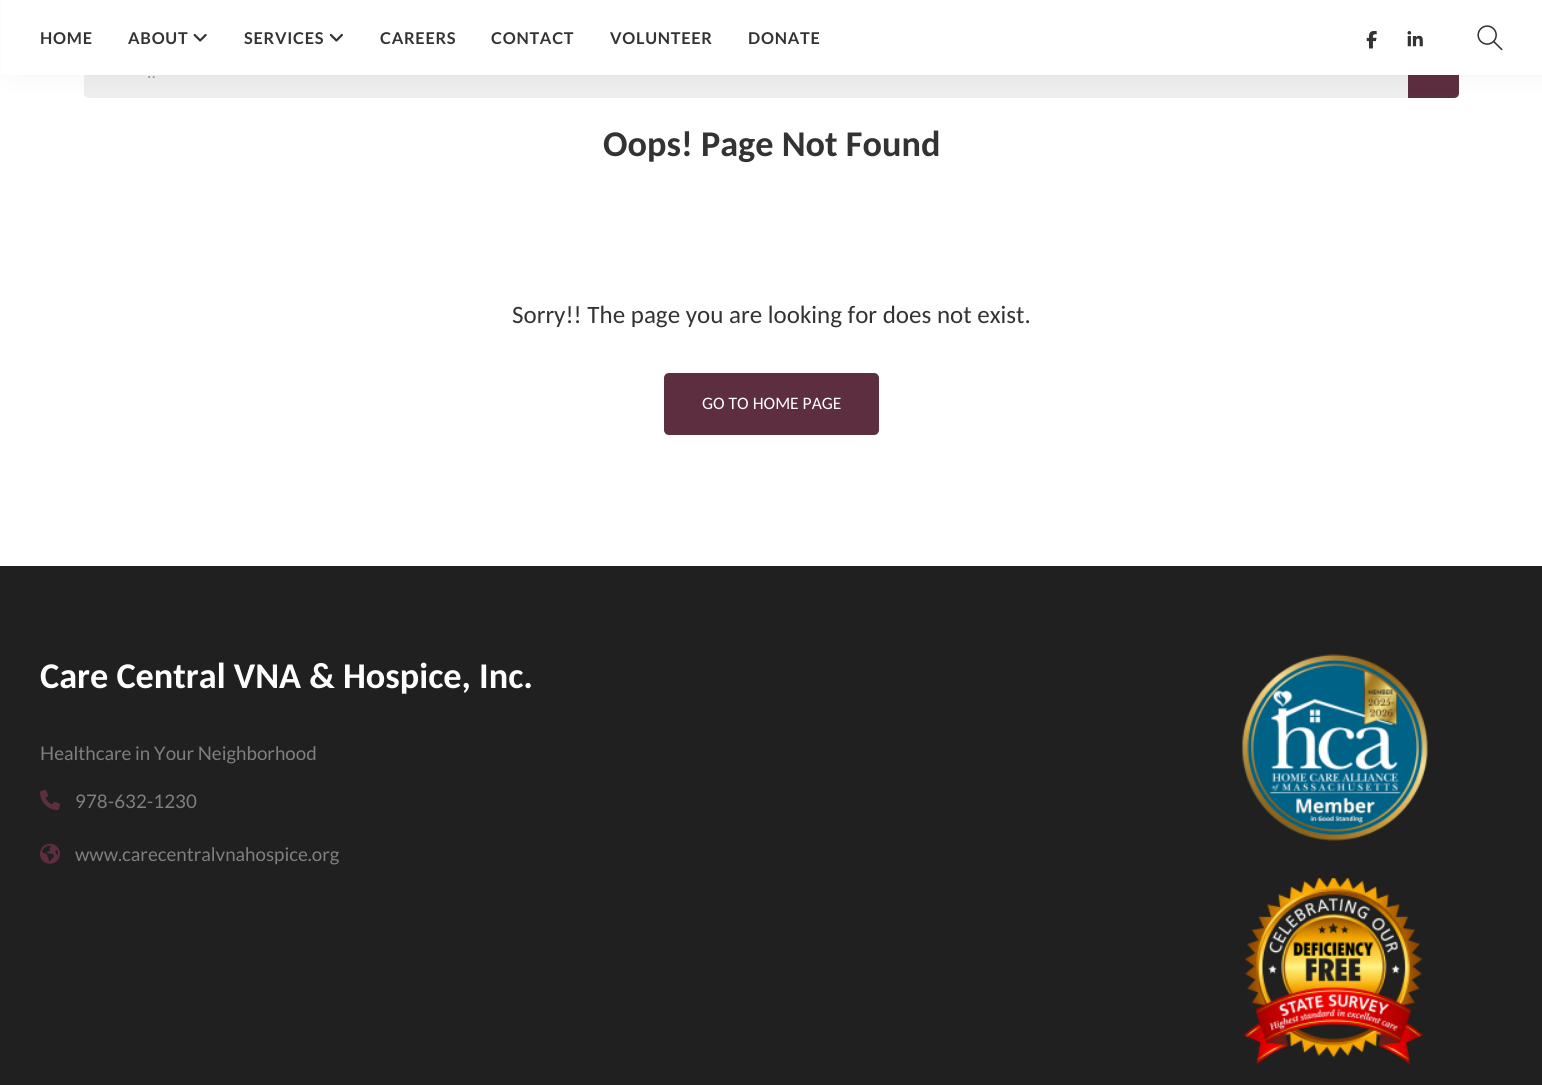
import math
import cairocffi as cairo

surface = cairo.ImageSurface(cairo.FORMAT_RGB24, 1542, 1085)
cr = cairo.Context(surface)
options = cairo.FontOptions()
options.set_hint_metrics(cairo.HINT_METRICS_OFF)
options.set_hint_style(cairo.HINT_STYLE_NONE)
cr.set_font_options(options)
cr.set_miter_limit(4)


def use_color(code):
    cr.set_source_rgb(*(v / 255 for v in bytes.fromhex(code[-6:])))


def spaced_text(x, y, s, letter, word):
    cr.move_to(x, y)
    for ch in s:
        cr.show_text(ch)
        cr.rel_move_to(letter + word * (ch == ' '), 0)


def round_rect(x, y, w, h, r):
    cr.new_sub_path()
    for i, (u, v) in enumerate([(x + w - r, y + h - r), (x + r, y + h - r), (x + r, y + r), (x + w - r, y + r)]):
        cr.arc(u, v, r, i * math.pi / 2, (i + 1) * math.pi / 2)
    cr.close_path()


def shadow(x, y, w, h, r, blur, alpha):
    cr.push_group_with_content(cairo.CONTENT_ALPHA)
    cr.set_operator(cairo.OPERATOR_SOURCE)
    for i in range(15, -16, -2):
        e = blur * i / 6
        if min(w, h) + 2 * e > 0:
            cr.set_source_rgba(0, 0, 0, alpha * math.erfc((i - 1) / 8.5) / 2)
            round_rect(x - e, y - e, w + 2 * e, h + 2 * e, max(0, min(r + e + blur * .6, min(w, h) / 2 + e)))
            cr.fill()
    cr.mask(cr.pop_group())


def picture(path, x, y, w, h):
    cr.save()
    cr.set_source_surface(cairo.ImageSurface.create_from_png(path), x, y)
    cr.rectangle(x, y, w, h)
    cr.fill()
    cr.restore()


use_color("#ffffff")
cr.paint()
use_color("#eeeeee")
cr.new_path()
cr.move_to(89, 48)
cr.line_to(1408, 48)
cr.line_to(1408, 98)
cr.line_to(89, 98)
cr.curve_to(86, 98, 84, 96, 84, 93)
cr.line_to(84, 53)
cr.curve_to(84, 50, 86, 48, 89, 48)
cr.close_path()
cr.fill()
use_color("#5d2d40")
cr.new_path()
cr.move_to(1408, 48)
cr.line_to(1454, 48)
cr.curve_to(1457, 48, 1459, 50, 1459, 53)
cr.line_to(1459, 93)
cr.curve_to(1459, 96, 1457, 98, 1454, 98)
cr.line_to(1408, 98)
cr.close_path()
cr.fill()
use_color("#000000")
shadow(14, 1, 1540, 73, 0, 15.5, 0.05)
use_color("#ffffff")
cr.rectangle(1, 0, 1541, 75)
cr.fill()
cr.select_font_face("Lato", cairo.FONT_SLANT_NORMAL, cairo.FONT_WEIGHT_BOLD)
cr.set_font_size(16.25)
use_color("#333333")
spaced_text(40, 44, "HOME", 0.75, 0)
spaced_text(128, 44, "ABOUT", 0.75, 0)
picture("img1.png", 193, 33, 14, 9)
spaced_text(244, 44, "SERVICES", 0.75, 0)
picture("img2.png", 329, 33, 14, 9)
spaced_text(380, 44, "CAREERS", 0.75, 0)
spaced_text(491, 44, "CONTACT", 0.75, 0)
spaced_text(610, 44, "VOLUNTEER", 0.75, 0)
spaced_text(748, 44, "DONATE", 0.75, 0)
picture("img3.png", 1366, 30, 11, 19)
picture("img4.png", 1407, 31, 16, 16)
picture("img5.png", 1477, 25, 26, 26)
cr.select_font_face("Carlito")
cr.set_font_size(17.5)
use_color("#999999")
cr.move_to(147, 78)
cr.show_text("..")
cr.select_font_face("Carlito", cairo.FONT_SLANT_NORMAL, cairo.FONT_WEIGHT_BOLD)
cr.set_font_size(36.25)
use_color("#333333")
cr.move_to(603, 156)
cr.show_text("Oops! Page Not Found")
cr.select_font_face("Carlito")
cr.set_font_size(25)
cr.move_to(512, 323)
cr.show_text("Sorry!! The page you are looking for does not exist.")
use_color("#5d2d40")
round_rect(664, 373, 215, 62, 5)
cr.fill()
cr.set_font_size(17.5)
use_color("#ffffff")
cr.move_to(702, 409)
cr.show_text("GO TO HOME PAGE")
use_color("#202020")
cr.rectangle(0, 566, 1542, 519)
cr.fill()
cr.select_font_face("Carlito", cairo.FONT_SLANT_NORMAL, cairo.FONT_WEIGHT_BOLD)
cr.set_font_size(36.25)
use_color("#ffffff")
cr.move_to(40, 688)
cr.show_text("Care Central VNA & Hospice, Inc.")
cr.select_font_face("Lato")
cr.set_font_size(18.75)
use_color("#7f7f7f")
cr.move_to(40, 760)
cr.show_text("Healthcare in Your Neighborhood")
picture("img6.png", 40, 790, 20, 20)
cr.move_to(75, 808)
cr.show_text("978-632-1230")
picture("img7.png", 40, 843, 20, 21)
cr.move_to(75, 861)
cr.show_text("www.carecentralvnahospice.org")
picture("img8.png", 1241, 654, 187, 187)
picture("img9.png", 1243, 878, 181, 187)
surface.write_to_png("result.png")
